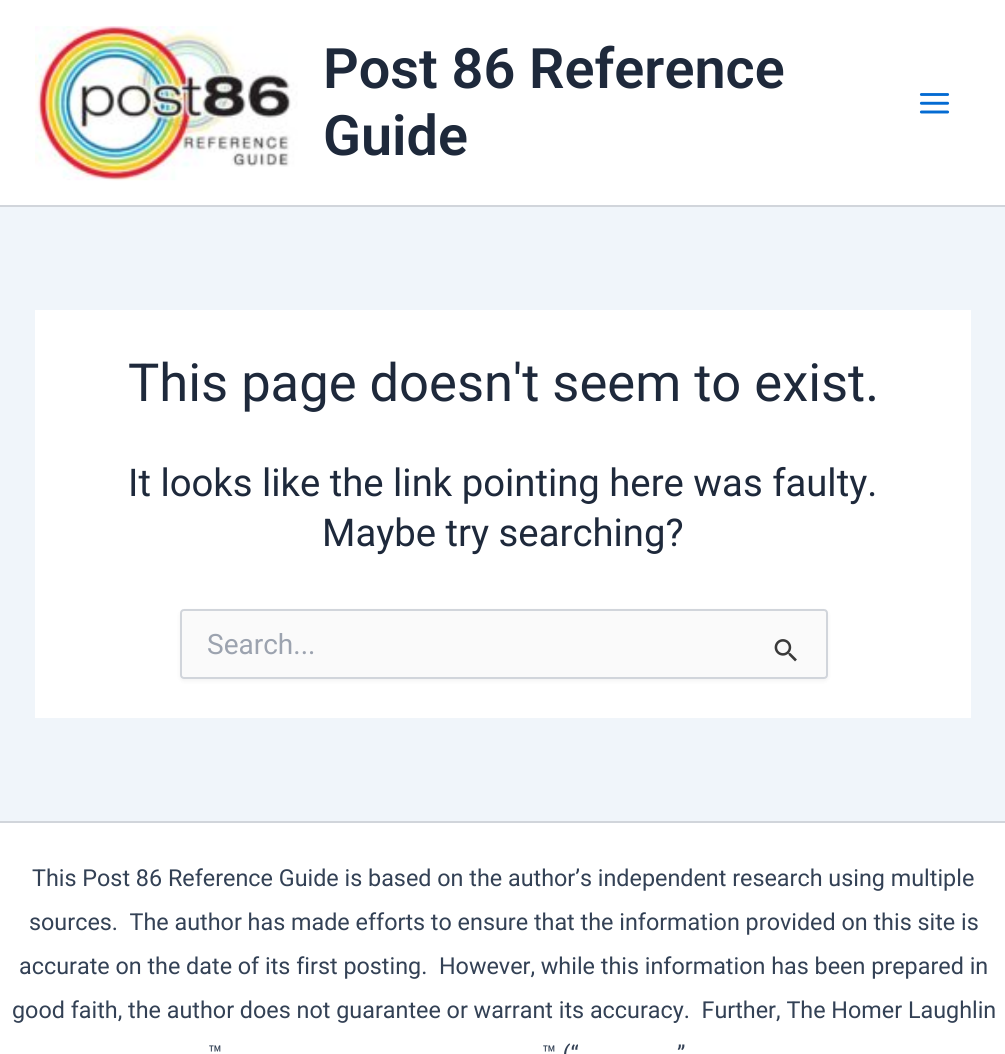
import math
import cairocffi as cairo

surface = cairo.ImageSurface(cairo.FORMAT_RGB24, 1005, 1054)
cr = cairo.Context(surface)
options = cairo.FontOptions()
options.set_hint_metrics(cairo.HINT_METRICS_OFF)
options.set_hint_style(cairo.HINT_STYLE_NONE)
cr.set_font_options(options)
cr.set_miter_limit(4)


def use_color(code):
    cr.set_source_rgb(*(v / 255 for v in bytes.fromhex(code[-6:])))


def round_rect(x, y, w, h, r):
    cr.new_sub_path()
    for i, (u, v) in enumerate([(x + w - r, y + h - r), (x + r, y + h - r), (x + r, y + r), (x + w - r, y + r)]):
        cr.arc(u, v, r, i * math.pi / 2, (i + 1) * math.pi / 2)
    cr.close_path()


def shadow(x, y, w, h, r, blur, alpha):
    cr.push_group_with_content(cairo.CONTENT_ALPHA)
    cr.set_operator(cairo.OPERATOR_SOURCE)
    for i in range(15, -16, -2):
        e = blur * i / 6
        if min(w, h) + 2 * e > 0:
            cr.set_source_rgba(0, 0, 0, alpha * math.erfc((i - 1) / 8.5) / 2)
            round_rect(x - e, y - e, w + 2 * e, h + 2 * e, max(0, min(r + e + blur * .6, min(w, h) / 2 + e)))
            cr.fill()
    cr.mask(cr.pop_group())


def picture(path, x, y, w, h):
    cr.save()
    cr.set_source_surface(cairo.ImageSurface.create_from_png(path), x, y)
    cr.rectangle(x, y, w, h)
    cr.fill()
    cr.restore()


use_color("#f0f5fa")
cr.paint()
use_color("#ffffff")
cr.rectangle(0, 0, 1005, 205)
cr.fill()
use_color("#d1d5db")
cr.rectangle(0, 205, 1005, 2)
cr.fill()
picture("img1.png", 35, 26, 263, 155)
cr.select_font_face("Roboto SemiBold")
cr.set_font_size(55.75)
use_color("#1e293b")
cr.move_to(323, 88)
cr.show_text("Post 86 Reference")
cr.move_to(323, 155)
cr.show_text("Guide")
picture("img2.png", 919, 93, 31, 21)
use_color("#ffffff")
cr.rectangle(35, 310, 936, 408)
cr.fill()
cr.select_font_face("Roboto")
cr.set_font_size(52.5)
use_color("#1e293b")
cr.move_to(128, 401)
cr.show_text("This page doesn't seem to exist.")
cr.set_font_size(38.25)
cr.move_to(128, 496)
cr.show_text("It looks like the link pointing here was faulty.")
cr.move_to(322, 546)
cr.show_text("Maybe try searching?")
use_color("#000000")
shadow(180, 611, 648, 70, 4, 2, 0.05)
use_color("#fafafa")
round_rect(181, 610, 646, 68, 3)
cr.fill_preserve()
use_color("#d1d5db")
cr.stroke()
cr.set_font_size(28)
use_color("#9ca3af")
cr.move_to(207, 654)
cr.show_text("Search...")
picture("img3.png", 774, 639, 23, 23)
use_color("#ffffff")
cr.rectangle(0, 823, 1005, 231)
cr.fill()
use_color("#d1d5db")
cr.rectangle(0, 821, 1005, 2)
cr.fill()
cr.set_font_size(23.35)
use_color("#334155")
cr.move_to(32, 886)
cr.show_text("This Post 86 Reference Guide is based on the author’s independent research using multiple")
cr.move_to(29, 930)
cr.show_text("sources.  The author has made efforts to ensure that the information provided on this site is")
cr.move_to(19, 974)
cr.show_text("accurate on the date of its first posting.  However, while this information has been prepared in")
cr.move_to(12, 1018)
cr.show_text("good faith, the author does not guarantee or warrant its accuracy.  Further, The Homer Laughlin")
cr.move_to(208, 1062)
cr.show_text("™")
cr.move_to(542, 1062)
cr.show_text("™ (“")
cr.move_to(677, 1062)
cr.show_text("”")
surface.write_to_png("result.png")
